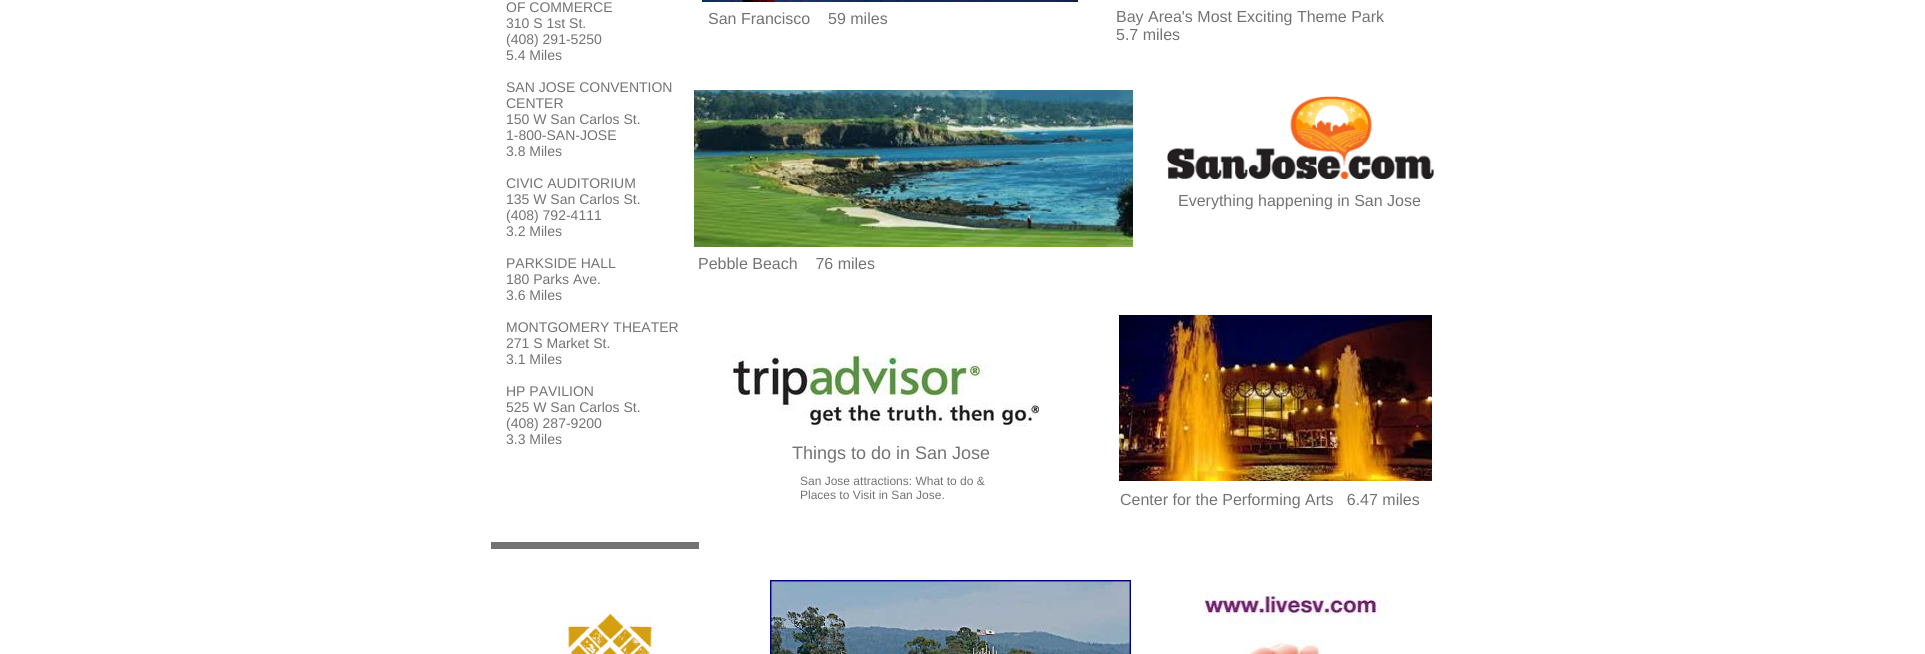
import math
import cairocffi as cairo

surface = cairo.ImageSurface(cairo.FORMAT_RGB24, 1925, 654)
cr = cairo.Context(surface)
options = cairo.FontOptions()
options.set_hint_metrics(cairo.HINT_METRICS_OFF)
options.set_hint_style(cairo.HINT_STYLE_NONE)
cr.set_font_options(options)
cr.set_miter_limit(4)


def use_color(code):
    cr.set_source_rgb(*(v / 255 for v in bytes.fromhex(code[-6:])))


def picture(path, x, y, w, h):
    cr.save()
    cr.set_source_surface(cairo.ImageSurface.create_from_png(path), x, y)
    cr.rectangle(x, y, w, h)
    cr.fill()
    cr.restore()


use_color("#ffffff")
cr.paint()
picture("img1.png", 702, 0, 376, 2)
cr.select_font_face("Liberation Sans")
cr.set_font_size(14)
use_color("#737373")
cr.move_to(506, 12)
cr.show_text("OF COMMERCE")
cr.move_to(506, 28)
cr.show_text("310 S 1st St.")
cr.move_to(506, 44)
cr.show_text("(408) 291-5250")
cr.move_to(506, 60)
cr.show_text("5.4 Miles")
cr.move_to(506, 92)
cr.show_text("SAN JOSE CONVENTION")
cr.move_to(506, 108)
cr.show_text("CENTER")
cr.move_to(506, 124)
cr.show_text("150 W San Carlos St.")
cr.move_to(506, 140)
cr.show_text("1-800-SAN-JOSE")
cr.move_to(506, 156)
cr.show_text("3.8 Miles")
cr.move_to(506, 188)
cr.show_text("CIVIC AUDITORIUM")
cr.move_to(506, 204)
cr.show_text("135 W San Carlos St.")
cr.move_to(506, 220)
cr.show_text("(408) 792-4111")
cr.move_to(506, 236)
cr.show_text("3.2 Miles")
cr.move_to(506, 268)
cr.show_text("PARKSIDE HALL")
cr.move_to(506, 284)
cr.show_text("180 Parks Ave.")
cr.move_to(506, 300)
cr.show_text("3.6 Miles")
cr.move_to(506, 332)
cr.show_text("MONTGOMERY THEATER")
cr.move_to(506, 348)
cr.show_text("271 S Market St.")
cr.move_to(506, 364)
cr.show_text("3.1 Miles")
cr.move_to(506, 396)
cr.show_text("HP PAVILION")
cr.move_to(506, 412)
cr.show_text("525 W San Carlos St.")
cr.move_to(506, 428)
cr.show_text("(408) 287-9200")
cr.move_to(506, 444)
cr.show_text("3.3 Miles")
cr.set_font_size(16)
cr.move_to(708, 24)
cr.show_text("San Francisco    59 miles")
cr.move_to(1116, 22)
cr.show_text("Bay Area's Most Exciting Theme Park")
cr.move_to(1116, 40)
cr.show_text("5.7 miles")
picture("img2.png", 694, 90, 439, 157)
picture("img3.png", 1167, 96, 267, 83)
cr.move_to(1178, 206)
cr.show_text("Everything happening in San Jose")
cr.move_to(698, 269)
cr.show_text("Pebble Beach    76 miles")
picture("img4.png", 731, 347, 308, 80)
picture("img5.png", 1119, 315, 313, 166)
cr.set_font_size(18)
cr.move_to(792, 459)
cr.show_text("Things to do in San Jose")
cr.set_font_size(12)
cr.move_to(800, 485)
cr.show_text("San Jose attractions: What to do &")
cr.move_to(800, 499)
cr.show_text("Places to Visit in San Jose.")
cr.set_font_size(16)
cr.move_to(1120, 505)
cr.show_text("Center for the Performing Arts   6.47 miles")
cr.rectangle(491, 542, 208, 7)
cr.fill()
picture("img6.png", 567, 614, 86, 40)
picture("img7.png", 770, 580, 361, 74)
picture("img8.png", 1199, 592, 190, 62)
surface.write_to_png("result.png")
